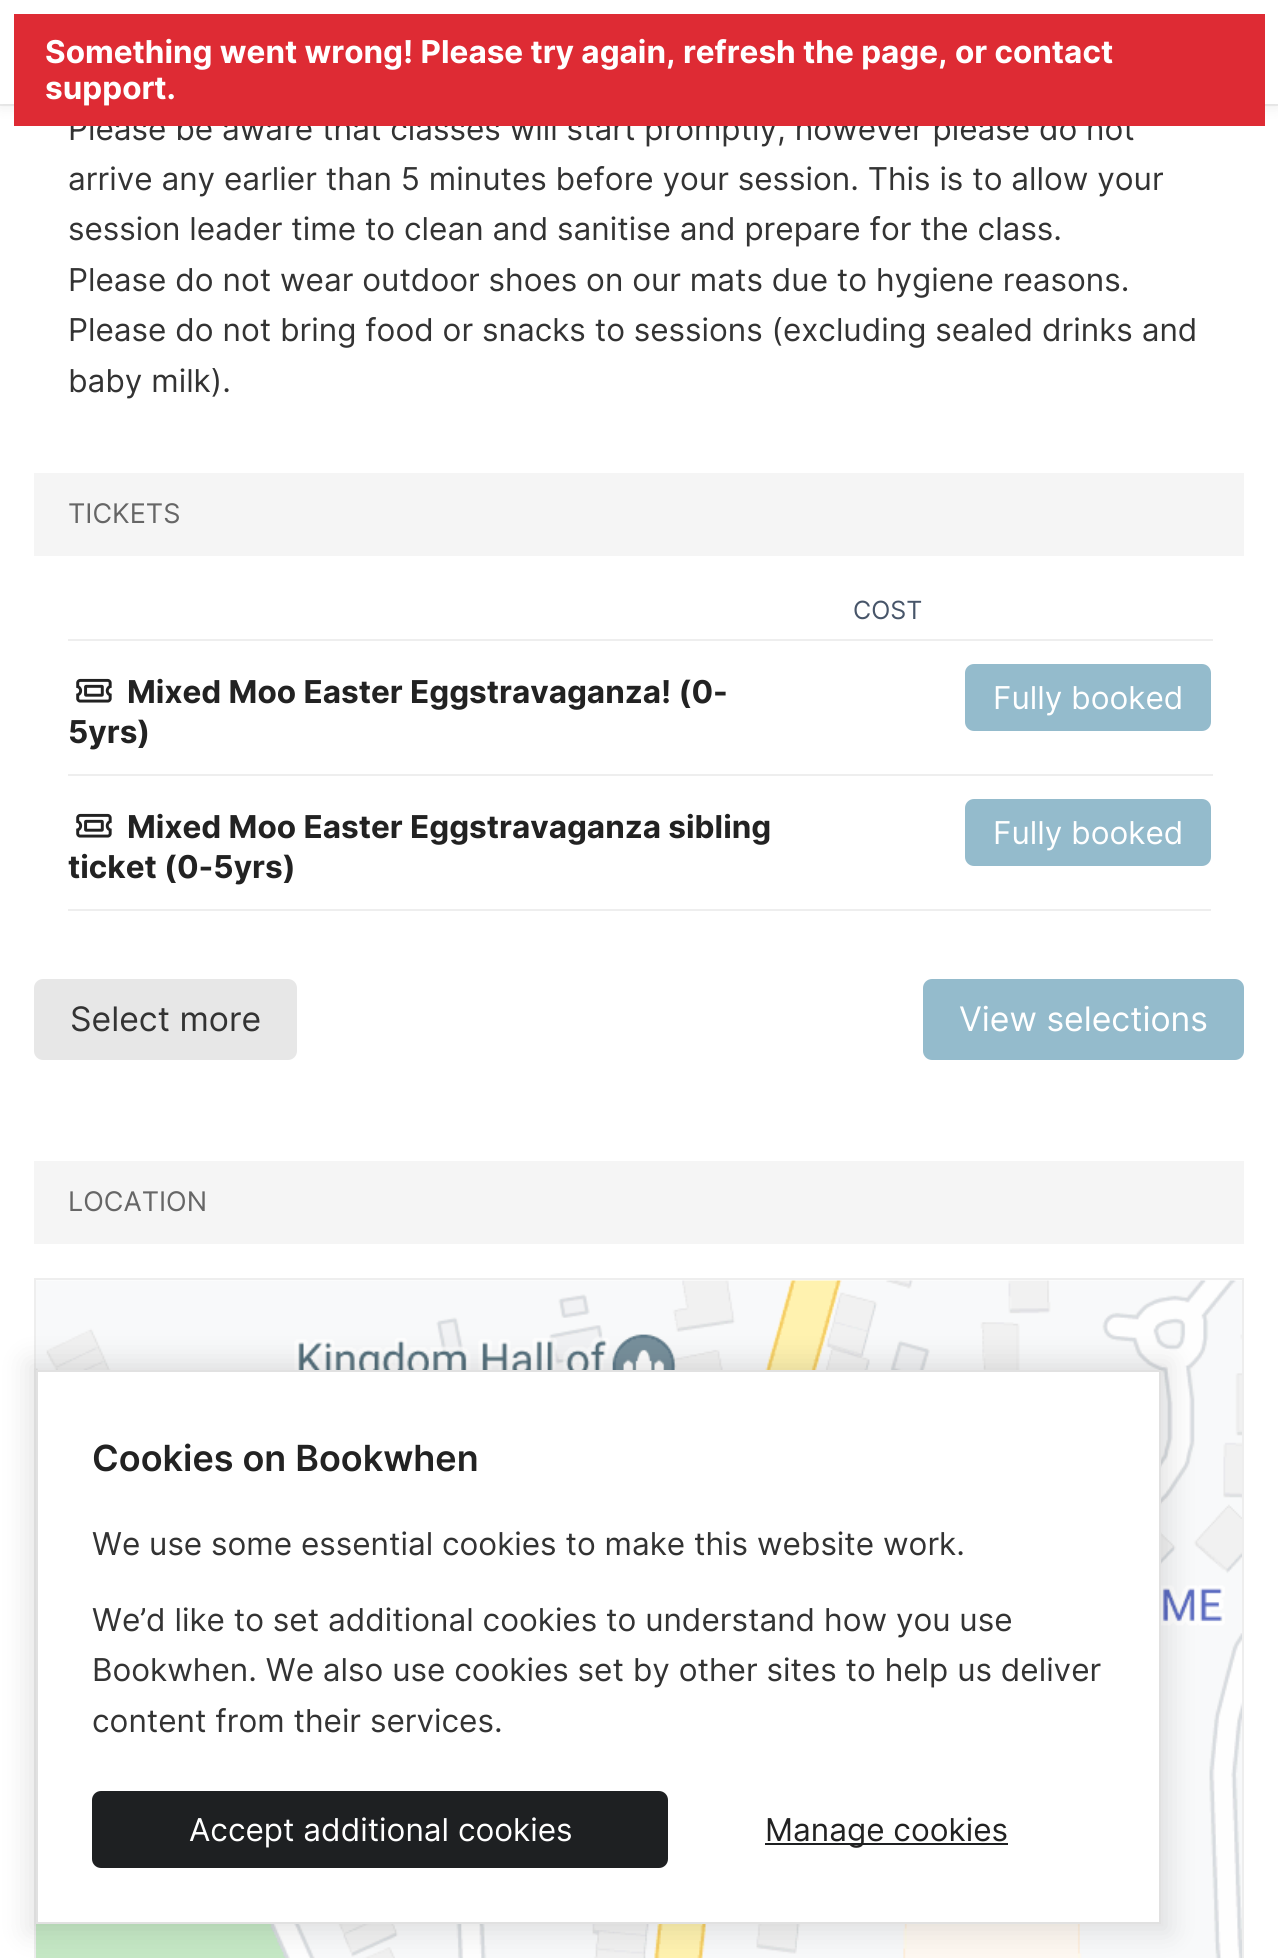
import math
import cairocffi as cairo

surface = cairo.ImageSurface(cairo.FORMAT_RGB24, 1278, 1958)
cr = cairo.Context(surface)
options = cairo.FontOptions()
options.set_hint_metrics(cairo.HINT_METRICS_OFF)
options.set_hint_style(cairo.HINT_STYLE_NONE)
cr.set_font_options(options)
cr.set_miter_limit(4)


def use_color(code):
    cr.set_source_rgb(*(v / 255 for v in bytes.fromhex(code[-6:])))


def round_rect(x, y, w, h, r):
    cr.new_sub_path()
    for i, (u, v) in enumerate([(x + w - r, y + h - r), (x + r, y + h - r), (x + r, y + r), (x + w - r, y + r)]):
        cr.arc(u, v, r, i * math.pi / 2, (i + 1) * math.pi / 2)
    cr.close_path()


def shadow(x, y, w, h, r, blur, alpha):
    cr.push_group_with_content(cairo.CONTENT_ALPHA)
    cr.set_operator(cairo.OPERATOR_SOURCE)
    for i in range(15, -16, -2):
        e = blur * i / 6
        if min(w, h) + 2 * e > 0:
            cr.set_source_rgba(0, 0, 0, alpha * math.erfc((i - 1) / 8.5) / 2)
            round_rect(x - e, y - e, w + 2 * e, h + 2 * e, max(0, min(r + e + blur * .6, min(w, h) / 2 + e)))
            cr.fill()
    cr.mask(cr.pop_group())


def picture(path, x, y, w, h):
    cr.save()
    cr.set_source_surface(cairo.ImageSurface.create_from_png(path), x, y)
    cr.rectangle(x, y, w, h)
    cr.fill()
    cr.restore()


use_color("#ffffff")
cr.paint()
use_color("#323232")
shadow(0, 2, 1278, 104, 0, 7, 0.1)
cr.set_source_rgba(0.392, 0.392, 0.392, 0.1)
cr.rectangle(0, 104, 1278, 2)
cr.fill()
use_color("#ffffff")
cr.rectangle(0, 0, 1278, 104)
cr.fill()
cr.select_font_face("Inter")
cr.set_font_size(31.5)
use_color("#333333")
cr.move_to(68, 140)
cr.show_text("Please be aware that classes will start promptly, however please do not")
use_color("#de2b34")
cr.rectangle(14, 14, 1251, 112)
cr.fill()
cr.select_font_face("Inter", cairo.FONT_SLANT_NORMAL, cairo.FONT_WEIGHT_BOLD)
use_color("#ffffff")
cr.move_to(45, 63)
cr.show_text("Something went wrong! Please try again, refresh the page, or contact")
cr.move_to(45, 99)
cr.show_text("support.")
cr.select_font_face("Inter")
use_color("#333333")
cr.move_to(68, 190)
cr.show_text("arrive any earlier than 5 minutes before your session. This is to allow your")
cr.move_to(68, 240)
cr.show_text("session leader time to clean and sanitise and prepare for the class.")
cr.move_to(68, 291)
cr.show_text("Please do not wear outdoor shoes on our mats due to hygiene reasons.")
cr.move_to(68, 341)
cr.show_text("Please do not bring food or snacks to sessions (excluding sealed drinks and")
cr.move_to(68, 392)
cr.show_text("baby milk).")
use_color("#f5f5f5")
cr.rectangle(34, 473, 1210, 83)
cr.fill()
cr.set_font_size(27)
use_color("#666666")
cr.move_to(68, 523)
cr.show_text("TICKETS")
use_color("#eeeeee")
cr.rectangle(68, 909, 1143, 2)
cr.fill()
cr.set_font_size(25)
use_color("#475569")
cr.move_to(853, 619)
cr.show_text("COST")
picture("img1.png", 76, 678, 36, 25)
cr.select_font_face("Inter", cairo.FONT_SLANT_NORMAL, cairo.FONT_WEIGHT_BOLD)
cr.set_font_size(31.5)
use_color("#222222")
cr.move_to(127, 703)
cr.show_text("Mixed Moo Easter Eggstravaganza! (0-")
cr.move_to(68, 743)
cr.show_text("5yrs)")
use_color("#eeeeee")
cr.rectangle(68, 639, 1145, 2)
cr.fill()
use_color("#94bbcc")
round_rect(965, 664, 246, 67, 9)
cr.fill()
cr.select_font_face("Inter")
use_color("#ffffff")
cr.move_to(993, 709)
cr.show_text("Fully booked")
picture("img1.png", 76, 813, 36, 25)
cr.select_font_face("Inter", cairo.FONT_SLANT_NORMAL, cairo.FONT_WEIGHT_BOLD)
use_color("#222222")
cr.move_to(127, 838)
cr.show_text("Mixed Moo Easter Eggstravaganza sibling")
cr.move_to(68, 878)
cr.show_text("ticket (0-5yrs)")
use_color("#eeeeee")
cr.rectangle(68, 774, 1145, 2)
cr.fill()
use_color("#94bbcc")
round_rect(965, 799, 246, 67, 9)
cr.fill()
cr.select_font_face("Inter")
use_color("#ffffff")
cr.move_to(993, 844)
cr.show_text("Fully booked")
use_color("#e7e7e7")
round_rect(34, 979, 263, 81, 9)
cr.fill()
cr.set_font_size(33.75)
use_color("#333333")
cr.move_to(70, 1031)
cr.show_text("Select more")
use_color("#94bbcc")
round_rect(923, 979, 321, 81, 9)
cr.fill()
use_color("#ffffff")
cr.move_to(959, 1031)
cr.show_text("View selections")
use_color("#f5f5f5")
cr.rectangle(34, 1161, 1210, 83)
cr.fill()
cr.set_font_size(27)
use_color("#666666")
cr.move_to(68, 1211)
cr.show_text("LOCATION")
cr.rectangle(35, 1279, 1208, 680)
use_color("#eeeeee")
cr.stroke()
picture("img2.png", 36, 1280, 1206, 678)
use_color("#000000")
shadow(27, 1361, 1143, 572, 0, 13.5, 0.1)
use_color("#ffffff")
cr.rectangle(37, 1371, 1123, 552)
cr.fill_preserve()
use_color("#e1e1e1")
cr.stroke()
cr.select_font_face("Inter SemiBold")
cr.set_font_size(36)
use_color("#222222")
cr.move_to(92, 1471)
cr.show_text("Cookies on Bookwhen")
cr.select_font_face("Inter")
cr.set_font_size(31.5)
use_color("#333333")
cr.move_to(92, 1555)
cr.show_text("We use some essential cookies to make this website work.")
cr.move_to(92, 1631)
cr.show_text("We’d like to set additional cookies to understand how you use")
cr.move_to(92, 1681)
cr.show_text("Bookwhen. We also use cookies set by other sites to help us deliver")
cr.move_to(92, 1732)
cr.show_text("content from their services.")
use_color("#1e2022")
round_rect(92, 1791, 576, 77, 9)
cr.fill()
use_color("#ffffff")
cr.move_to(189, 1841)
cr.show_text("Accept additional cookies")
use_color("#1e2022")
cr.rectangle(765, 1843, 243, 2)
cr.fill()
use_color("#222222")
cr.move_to(765, 1841)
cr.show_text("Manage cookies")
surface.write_to_png("result.png")
